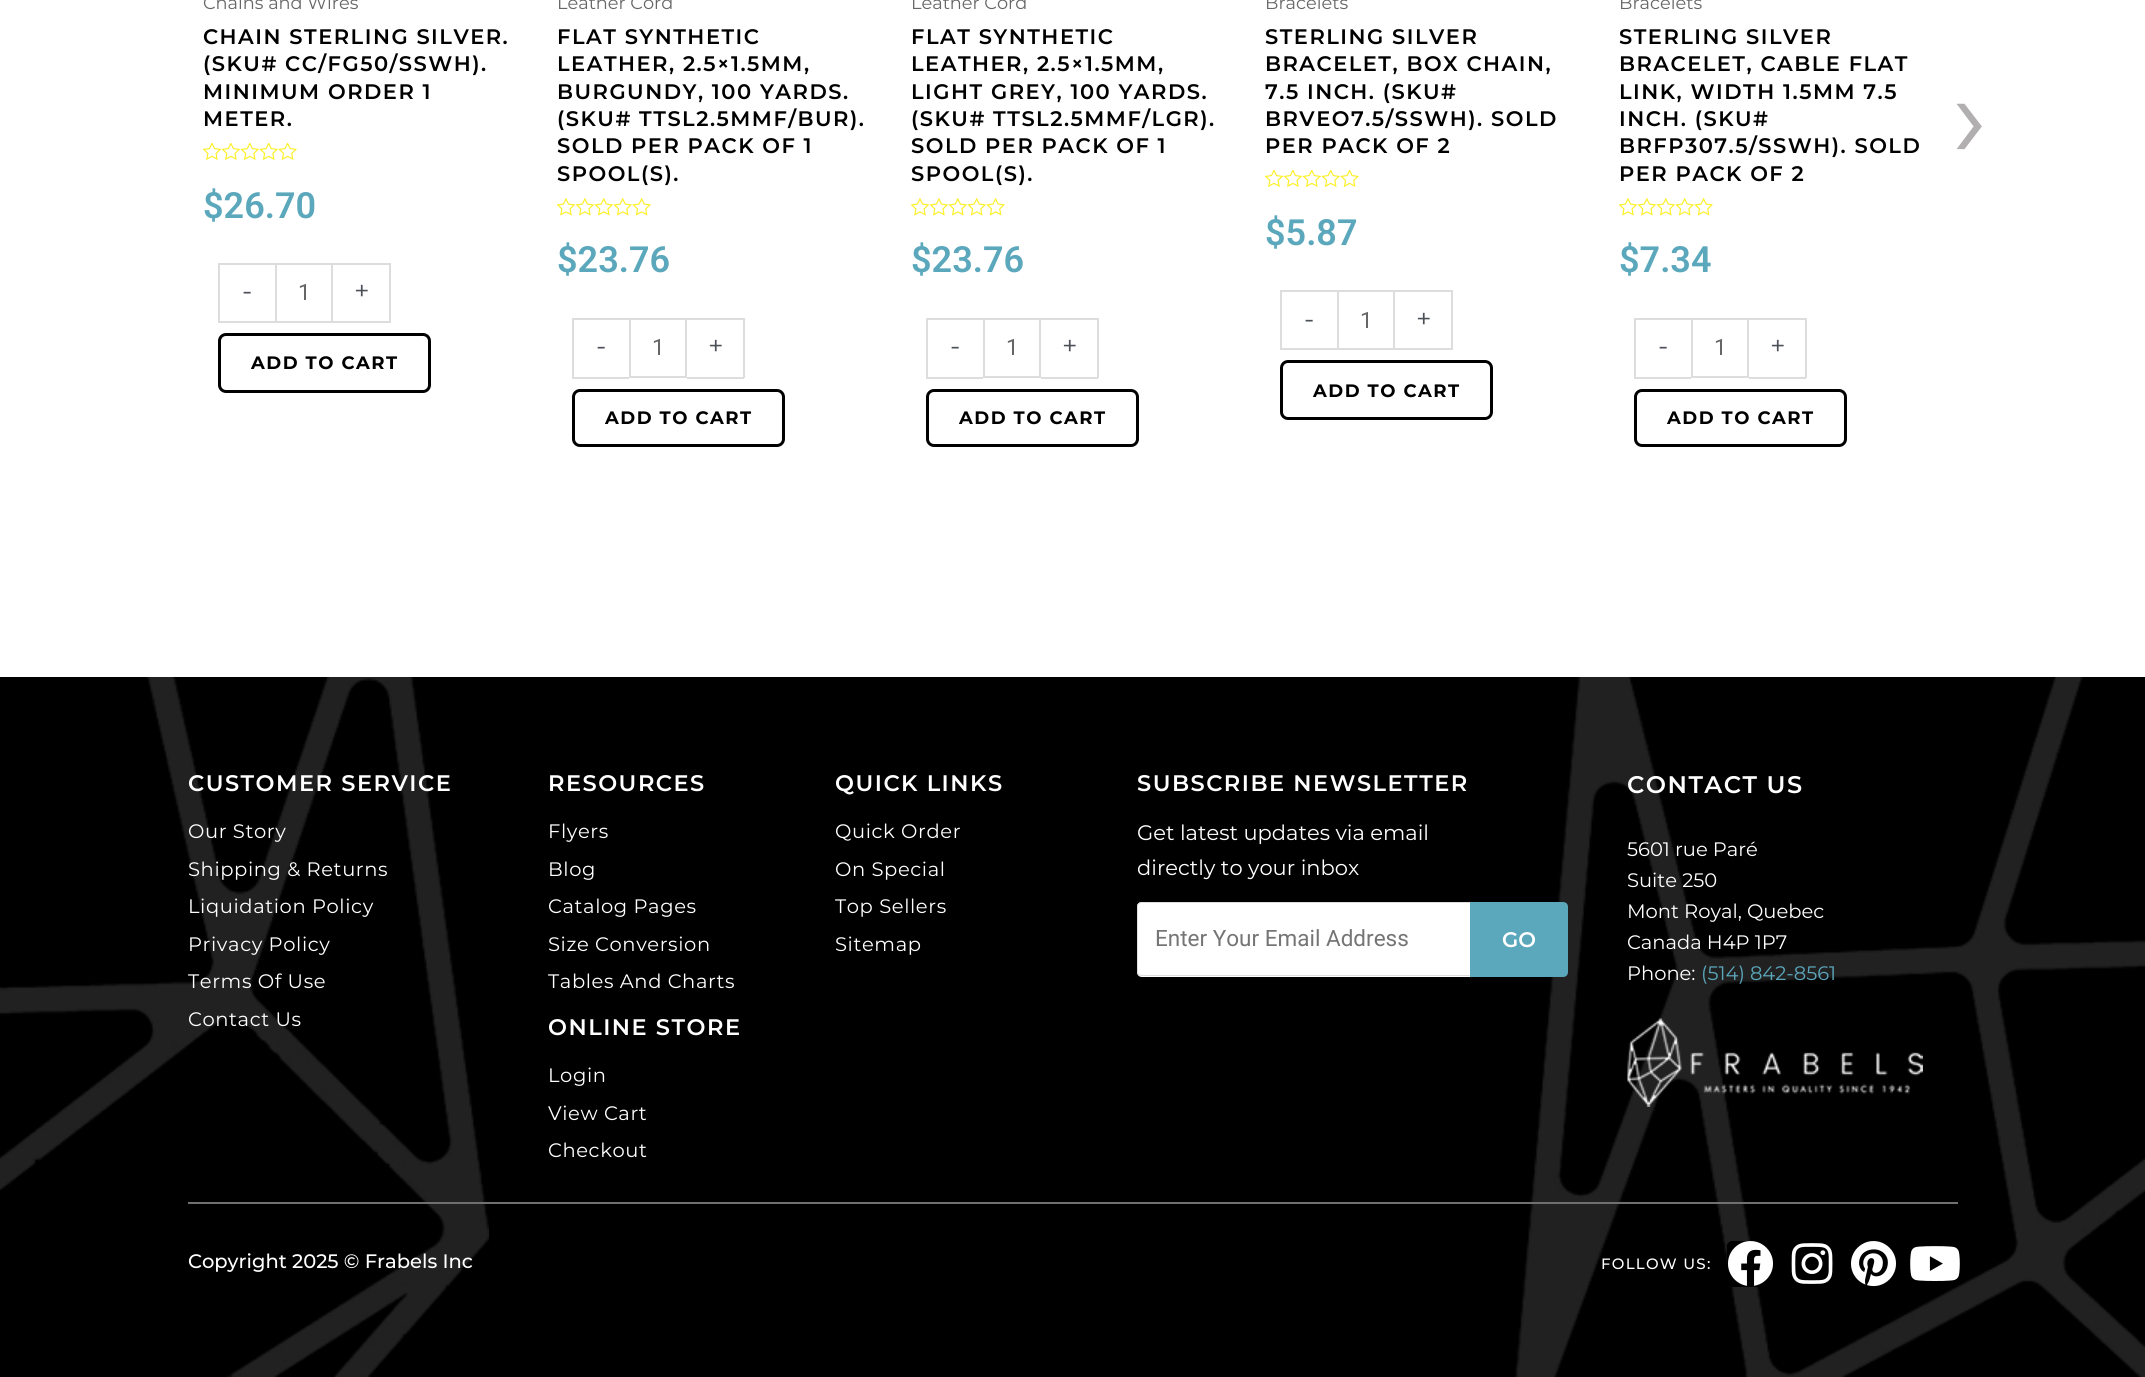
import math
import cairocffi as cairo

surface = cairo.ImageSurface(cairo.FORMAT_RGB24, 2145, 1377)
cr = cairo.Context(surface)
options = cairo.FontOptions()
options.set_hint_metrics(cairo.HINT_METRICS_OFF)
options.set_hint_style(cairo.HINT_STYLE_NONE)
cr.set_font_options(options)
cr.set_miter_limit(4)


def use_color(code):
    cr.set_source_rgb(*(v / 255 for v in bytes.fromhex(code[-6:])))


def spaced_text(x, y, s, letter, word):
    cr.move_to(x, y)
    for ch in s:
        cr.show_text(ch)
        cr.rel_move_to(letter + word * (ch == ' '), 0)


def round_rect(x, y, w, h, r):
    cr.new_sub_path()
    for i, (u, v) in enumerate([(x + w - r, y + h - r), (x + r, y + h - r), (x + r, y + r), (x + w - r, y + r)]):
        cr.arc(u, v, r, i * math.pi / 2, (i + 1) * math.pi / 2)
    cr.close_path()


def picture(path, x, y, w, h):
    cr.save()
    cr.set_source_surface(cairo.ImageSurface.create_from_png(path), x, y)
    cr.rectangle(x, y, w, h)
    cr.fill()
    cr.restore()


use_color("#ffffff")
cr.paint()
cr.select_font_face("Montserrat")
cr.set_font_size(17.75)
use_color("#666666")
cr.move_to(203, 9)
cr.show_text("Chains and Wires")
cr.select_font_face("Montserrat SemiBold")
cr.set_font_size(21)
use_color("#000000")
spaced_text(203, 44, "CHAIN STERLING SILVER.", 1.5, 0)
spaced_text(203, 71, "(SKU# CC/FG50/SSWH).", 1.5, 0)
spaced_text(203, 99, "MINIMUM ORDER 1", 1.5, 0)
spaced_text(203, 126, "METER.", 1.5, 0)
picture("img1.png", 203, 143, 94, 17)
cr.select_font_face("Roboto SemiBold")
cr.set_font_size(36)
use_color("#5ba7bc")
cr.move_to(203, 218)
cr.show_text("$26.70")
use_color("#dddddd")
cr.rectangle(218, 263, 57, 2)
cr.fill()
cr.rectangle(218, 321, 57, 2)
cr.fill()
cr.rectangle(218, 263, 2, 60)
cr.fill()
cr.select_font_face("Montserrat")
cr.set_font_size(27)
use_color("#4b4f58")
cr.move_to(242, 300)
cr.show_text("-")
cr.rectangle(276, 264, 56, 58)
use_color("#dddddd")
cr.stroke()
cr.select_font_face("Roboto")
cr.set_font_size(22.5)
use_color("#666666")
cr.move_to(298, 300)
cr.show_text("1")
use_color("#dddddd")
cr.rectangle(333, 263, 57, 2)
cr.fill()
cr.rectangle(389, 263, 2, 60)
cr.fill()
cr.rectangle(333, 321, 57, 2)
cr.fill()
cr.select_font_face("Montserrat")
cr.set_font_size(27)
use_color("#4b4f58")
cr.move_to(354, 300)
cr.show_text("+")
round_rect(219.5, 334.5, 210, 57, 6.5)
use_color("#000000")
cr.set_line_width(3)
cr.stroke()
cr.select_font_face("Montserrat", cairo.FONT_SLANT_NORMAL, cairo.FONT_WEIGHT_BOLD)
cr.set_font_size(18)
spaced_text(251, 369, "ADD TO CART", 1.5, 0)
cr.select_font_face("Montserrat")
cr.set_font_size(17.75)
use_color("#666666")
cr.move_to(557, 9)
cr.show_text("Leather Cord")
cr.select_font_face("Montserrat SemiBold")
cr.set_font_size(21)
use_color("#000000")
spaced_text(557, 44, "FLAT SYNTHETIC", 1.5, 0)
spaced_text(557, 71, "LEATHER, 2.5×1.5MM,", 1.5, 0)
spaced_text(557, 99, "BURGUNDY, 100 YARDS.", 1.5, 0)
spaced_text(557, 126, "(SKU# TTSL2.5MMF/BUR).", 1.5, 0)
spaced_text(557, 153, "SOLD PER PACK OF 1", 1.5, 0)
spaced_text(557, 181, "SPOOL(S).", 1.5, 0)
picture("img2.png", 557, 198, 94, 18)
cr.select_font_face("Roboto SemiBold")
cr.set_font_size(36)
use_color("#5ba7bc")
cr.move_to(557, 272)
cr.show_text("$23.76")
use_color("#dddddd")
cr.rectangle(572, 318, 57, 2)
cr.fill()
cr.rectangle(572, 377, 57, 2)
cr.fill()
cr.rectangle(572, 318, 2, 60)
cr.fill()
cr.select_font_face("Montserrat")
cr.set_font_size(27)
use_color("#4b4f58")
cr.move_to(596, 355)
cr.show_text("-")
cr.rectangle(630, 319, 56, 58)
use_color("#dddddd")
cr.set_line_width(2)
cr.stroke()
cr.select_font_face("Roboto")
cr.set_font_size(22.5)
use_color("#666666")
cr.move_to(652, 355)
cr.show_text("1")
use_color("#dddddd")
cr.rectangle(687, 318, 57, 2)
cr.fill()
cr.rectangle(743, 318, 2, 60)
cr.fill()
cr.rectangle(687, 377, 57, 2)
cr.fill()
cr.select_font_face("Montserrat")
cr.set_font_size(27)
use_color("#4b4f58")
cr.move_to(708, 355)
cr.show_text("+")
round_rect(573.5, 390.5, 210, 55, 6.5)
use_color("#000000")
cr.set_line_width(3)
cr.stroke()
cr.select_font_face("Montserrat", cairo.FONT_SLANT_NORMAL, cairo.FONT_WEIGHT_BOLD)
cr.set_font_size(18)
spaced_text(605, 424, "ADD TO CART", 1.5, 0)
cr.select_font_face("Montserrat")
cr.set_font_size(17.75)
use_color("#666666")
cr.move_to(911, 9)
cr.show_text("Leather Cord")
cr.select_font_face("Montserrat SemiBold")
cr.set_font_size(21)
use_color("#000000")
spaced_text(911, 44, "FLAT SYNTHETIC", 1.5, 0)
spaced_text(911, 71, "LEATHER, 2.5×1.5MM,", 1.5, 0)
spaced_text(911, 99, "LIGHT GREY, 100 YARDS.", 1.5, 0)
spaced_text(911, 126, "(SKU# TTSL2.5MMF/LGR).", 1.5, 0)
spaced_text(911, 153, "SOLD PER PACK OF 1", 1.5, 0)
spaced_text(911, 181, "SPOOL(S).", 1.5, 0)
picture("img2.png", 911, 198, 94, 18)
cr.select_font_face("Roboto SemiBold")
cr.set_font_size(36)
use_color("#5ba7bc")
cr.move_to(911, 272)
cr.show_text("$23.76")
use_color("#dddddd")
cr.rectangle(926, 318, 57, 2)
cr.fill()
cr.rectangle(926, 377, 57, 2)
cr.fill()
cr.rectangle(926, 318, 2, 60)
cr.fill()
cr.select_font_face("Montserrat")
cr.set_font_size(27)
use_color("#4b4f58")
cr.move_to(950, 355)
cr.show_text("-")
cr.rectangle(984, 319, 56, 58)
use_color("#dddddd")
cr.set_line_width(2)
cr.stroke()
cr.select_font_face("Roboto")
cr.set_font_size(22.5)
use_color("#666666")
cr.move_to(1006, 355)
cr.show_text("1")
use_color("#dddddd")
cr.rectangle(1041, 318, 57, 2)
cr.fill()
cr.rectangle(1097, 318, 2, 60)
cr.fill()
cr.rectangle(1041, 377, 57, 2)
cr.fill()
cr.select_font_face("Montserrat")
cr.set_font_size(27)
use_color("#4b4f58")
cr.move_to(1062, 355)
cr.show_text("+")
round_rect(927.5, 390.5, 210, 55, 6.5)
use_color("#000000")
cr.set_line_width(3)
cr.stroke()
cr.select_font_face("Montserrat", cairo.FONT_SLANT_NORMAL, cairo.FONT_WEIGHT_BOLD)
cr.set_font_size(18)
spaced_text(959, 424, "ADD TO CART", 1.5, 0)
cr.select_font_face("Montserrat")
cr.set_font_size(17.75)
use_color("#666666")
cr.move_to(1265, 9)
cr.show_text("Bracelets")
cr.select_font_face("Montserrat SemiBold")
cr.set_font_size(21)
use_color("#000000")
spaced_text(1265, 44, "STERLING SILVER", 1.5, 0)
spaced_text(1265, 71, "BRACELET, BOX CHAIN,", 1.5, 0)
spaced_text(1265, 99, "7.5 INCH. (SKU#", 1.5, 0)
spaced_text(1265, 126, "BRVEO7.5/SSWH). SOLD", 1.5, 0)
spaced_text(1265, 153, "PER PACK OF 2", 1.5, 0)
picture("img1.png", 1265, 170, 94, 17)
cr.select_font_face("Roboto SemiBold")
cr.set_font_size(36)
use_color("#5ba7bc")
cr.move_to(1265, 245)
cr.show_text("$5.87")
use_color("#dddddd")
cr.rectangle(1280, 290, 57, 2)
cr.fill()
cr.rectangle(1280, 348, 57, 2)
cr.fill()
cr.rectangle(1280, 290, 2, 60)
cr.fill()
cr.select_font_face("Montserrat")
cr.set_font_size(27)
use_color("#4b4f58")
cr.move_to(1304, 328)
cr.show_text("-")
cr.rectangle(1338, 291, 56, 58)
use_color("#dddddd")
cr.set_line_width(2)
cr.stroke()
cr.select_font_face("Roboto")
cr.set_font_size(22.5)
use_color("#666666")
cr.move_to(1360, 328)
cr.show_text("1")
use_color("#dddddd")
cr.rectangle(1395, 290, 57, 2)
cr.fill()
cr.rectangle(1451, 290, 2, 60)
cr.fill()
cr.rectangle(1395, 348, 57, 2)
cr.fill()
cr.select_font_face("Montserrat")
cr.set_font_size(27)
use_color("#4b4f58")
cr.move_to(1416, 328)
cr.show_text("+")
round_rect(1281.5, 361.5, 210, 57, 6.5)
use_color("#000000")
cr.set_line_width(3)
cr.stroke()
cr.select_font_face("Montserrat", cairo.FONT_SLANT_NORMAL, cairo.FONT_WEIGHT_BOLD)
cr.set_font_size(18)
spaced_text(1313, 397, "ADD TO CART", 1.5, 0)
cr.select_font_face("Montserrat")
cr.set_font_size(17.75)
use_color("#666666")
cr.move_to(1619, 9)
cr.show_text("Bracelets")
cr.select_font_face("Montserrat SemiBold")
cr.set_font_size(21)
use_color("#000000")
spaced_text(1619, 44, "STERLING SILVER", 1.5, 0)
spaced_text(1619, 71, "BRACELET, CABLE FLAT", 1.5, 0)
spaced_text(1619, 99, "LINK, WIDTH 1.5MM 7.5", 1.5, 0)
spaced_text(1619, 126, "INCH. (SKU#", 1.5, 0)
spaced_text(1619, 153, "BRFP307.5/SSWH). SOLD", 1.5, 0)
spaced_text(1619, 181, "PER PACK OF 2", 1.5, 0)
picture("img2.png", 1619, 198, 94, 18)
cr.select_font_face("Roboto SemiBold")
cr.set_font_size(36)
use_color("#5ba7bc")
cr.move_to(1619, 272)
cr.show_text("$7.34")
use_color("#dddddd")
cr.rectangle(1634, 318, 57, 2)
cr.fill()
cr.rectangle(1634, 377, 57, 2)
cr.fill()
cr.rectangle(1634, 318, 2, 60)
cr.fill()
cr.select_font_face("Montserrat")
cr.set_font_size(27)
use_color("#4b4f58")
cr.move_to(1658, 355)
cr.show_text("-")
cr.rectangle(1692, 319, 56, 58)
use_color("#dddddd")
cr.set_line_width(2)
cr.stroke()
cr.select_font_face("Roboto")
cr.set_font_size(22.5)
use_color("#666666")
cr.move_to(1714, 355)
cr.show_text("1")
use_color("#dddddd")
cr.rectangle(1749, 318, 57, 2)
cr.fill()
cr.rectangle(1805, 318, 2, 60)
cr.fill()
cr.rectangle(1749, 377, 57, 2)
cr.fill()
cr.select_font_face("Montserrat")
cr.set_font_size(27)
use_color("#4b4f58")
cr.move_to(1770, 355)
cr.show_text("+")
round_rect(1635.5, 390.5, 210, 55, 6.5)
use_color("#000000")
cr.set_line_width(3)
cr.stroke()
cr.select_font_face("Montserrat", cairo.FONT_SLANT_NORMAL, cairo.FONT_WEIGHT_BOLD)
cr.set_font_size(18)
spaced_text(1667, 424, "ADD TO CART", 1.5, 0)
cr.select_font_face("Montserrat")
cr.set_font_size(120)
use_color("#b1afaf")
cr.move_to(1952, 158)
cr.show_text("›")
use_color("#000000")
cr.rectangle(0, 677, 2145, 700)
cr.fill()
picture("img3.png", 0, 677, 489, 700)
picture("img4.png", 1515, 677, 630, 700)
cr.select_font_face("Montserrat SemiBold")
cr.set_font_size(22.5)
use_color("#ffffff")
spaced_text(188, 791, "CUSTOMER SERVICE", 1.5, 0)
cr.select_font_face("Montserrat")
cr.set_font_size(19.5)
spaced_text(188, 838, "Our Story", 0.6, 0)
spaced_text(188, 876, "Shipping & Returns", 0.6, 0)
spaced_text(188, 913, "Liquidation Policy", 0.6, 0)
spaced_text(188, 951, "Privacy Policy", 0.6, 0)
spaced_text(188, 988, "Terms Of Use", 0.6, 0)
spaced_text(188, 1026, "Contact Us", 0.6, 0)
cr.select_font_face("Montserrat SemiBold")
cr.set_font_size(22.5)
spaced_text(548, 791, "RESOURCES", 1.5, 0)
cr.select_font_face("Montserrat")
cr.set_font_size(19.5)
spaced_text(548, 838, "Flyers", 0.6, 0)
spaced_text(548, 876, "Blog", 0.6, 0)
spaced_text(548, 913, "Catalog Pages", 0.6, 0)
spaced_text(548, 951, "Size Conversion", 0.6, 0)
spaced_text(548, 988, "Tables And Charts", 0.6, 0)
cr.select_font_face("Montserrat SemiBold")
cr.set_font_size(22.5)
spaced_text(548, 1035, "ONLINE STORE", 1.5, 0)
cr.select_font_face("Montserrat")
cr.set_font_size(19.5)
spaced_text(548, 1082, "Login", 0.6, 0)
spaced_text(548, 1120, "View Cart", 0.6, 0)
spaced_text(548, 1157, "Checkout", 0.6, 0)
cr.select_font_face("Montserrat SemiBold")
cr.set_font_size(22.5)
spaced_text(835, 791, "QUICK LINKS", 1.5, 0)
cr.select_font_face("Montserrat")
cr.set_font_size(19.5)
spaced_text(835, 838, "Quick Order", 0.6, 0)
spaced_text(835, 876, "On Special", 0.6, 0)
spaced_text(835, 913, "Top Sellers", 0.6, 0)
spaced_text(835, 951, "Sitemap", 0.6, 0)
cr.select_font_face("Montserrat SemiBold")
cr.set_font_size(22.5)
spaced_text(1137, 791, "SUBSCRIBE NEWSLETTER", 1.5, 0)
cr.select_font_face("Montserrat")
cr.set_font_size(21)
cr.move_to(1137, 840)
cr.show_text("Get latest updates via email")
cr.move_to(1137, 875)
cr.show_text("directly to your inbox")
cr.new_path()
cr.move_to(1142, 902)
cr.line_to(1470, 902)
cr.line_to(1470, 977)
cr.line_to(1142, 977)
cr.curve_to(1139, 977, 1137, 975, 1137, 972)
cr.line_to(1137, 907)
cr.curve_to(1137, 904, 1139, 902, 1142, 902)
cr.close_path()
cr.fill()
use_color("#dddddd")
cr.set_fill_rule(cairo.FILL_RULE_EVEN_ODD)
cr.new_path()
cr.move_to(1142, 902)
cr.line_to(1470, 902)
cr.line_to(1470, 976)
cr.line_to(1142, 976)
cr.curve_to(1139, 976, 1137, 974, 1137, 972)
cr.line_to(1137, 906)
cr.curve_to(1137, 904, 1139, 902, 1142, 902)
cr.close_path()
cr.move_to(1142, 903)
cr.line_to(1470, 903)
cr.line_to(1470, 975)
cr.line_to(1142, 975)
cr.curve_to(1140, 975, 1138, 974, 1138, 972)
cr.line_to(1138, 906)
cr.curve_to(1138, 904, 1140, 903, 1142, 903)
cr.close_path()
cr.fill()
cr.select_font_face("Roboto")
cr.set_font_size(22.5)
use_color("#757575")
cr.move_to(1155, 946)
cr.show_text("Enter Your Email Address")
use_color("#5ba7bc")
cr.new_path()
cr.move_to(1470, 902)
cr.line_to(1563, 902)
cr.curve_to(1566, 902, 1568, 904, 1568, 907)
cr.line_to(1568, 972)
cr.curve_to(1568, 975, 1566, 977, 1563, 977)
cr.line_to(1470, 977)
cr.close_path()
cr.fill()
cr.select_font_face("Montserrat SemiBold")
cr.set_font_size(21)
use_color("#ffffff")
cr.move_to(1502, 947)
cr.show_text("GO")
cr.set_font_size(24)
spaced_text(1627, 793, "CONTACT US", 1.5, 0)
cr.select_font_face("Montserrat")
cr.set_font_size(19.5)
cr.move_to(1627, 856)
cr.show_text("5601 rue Paré")
cr.move_to(1627, 887)
cr.show_text("Suite 250")
cr.move_to(1627, 918)
cr.show_text("Mont Royal, Quebec")
cr.move_to(1627, 949)
cr.show_text("Canada H4P 1P7")
cr.move_to(1627, 980)
cr.show_text("Phone:")
use_color("#5ba7bc")
cr.move_to(1701, 980)
cr.show_text("(514) 842-8561")
picture("img5.png", 1627, 1018, 296, 89)
use_color("#707070")
cr.rectangle(188, 1202, 1770, 2)
cr.fill()
cr.select_font_face("Montserrat Medium")
use_color("#ffffff")
cr.move_to(188, 1268)
cr.show_text("Copyright 2025 © Frabels Inc")
cr.set_font_size(15)
spaced_text(1601, 1269, "FOLLOW US:", 1.25, 0)
use_color("#000000")
round_rect(1727, 1241, 46, 46, 5)
cr.fill()
picture("img6.png", 1728, 1241, 45, 45)
picture("img7.png", 1791, 1243, 42, 41)
picture("img8.png", 1851, 1241, 45, 46)
picture("img9.png", 1910, 1246, 50, 35)
surface.write_to_png("result.png")
